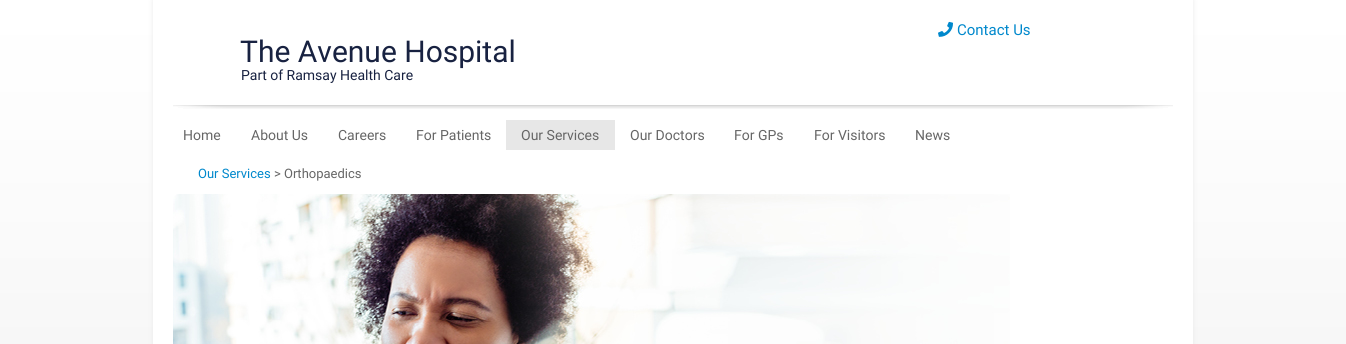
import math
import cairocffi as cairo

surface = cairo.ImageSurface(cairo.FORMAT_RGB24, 1346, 344)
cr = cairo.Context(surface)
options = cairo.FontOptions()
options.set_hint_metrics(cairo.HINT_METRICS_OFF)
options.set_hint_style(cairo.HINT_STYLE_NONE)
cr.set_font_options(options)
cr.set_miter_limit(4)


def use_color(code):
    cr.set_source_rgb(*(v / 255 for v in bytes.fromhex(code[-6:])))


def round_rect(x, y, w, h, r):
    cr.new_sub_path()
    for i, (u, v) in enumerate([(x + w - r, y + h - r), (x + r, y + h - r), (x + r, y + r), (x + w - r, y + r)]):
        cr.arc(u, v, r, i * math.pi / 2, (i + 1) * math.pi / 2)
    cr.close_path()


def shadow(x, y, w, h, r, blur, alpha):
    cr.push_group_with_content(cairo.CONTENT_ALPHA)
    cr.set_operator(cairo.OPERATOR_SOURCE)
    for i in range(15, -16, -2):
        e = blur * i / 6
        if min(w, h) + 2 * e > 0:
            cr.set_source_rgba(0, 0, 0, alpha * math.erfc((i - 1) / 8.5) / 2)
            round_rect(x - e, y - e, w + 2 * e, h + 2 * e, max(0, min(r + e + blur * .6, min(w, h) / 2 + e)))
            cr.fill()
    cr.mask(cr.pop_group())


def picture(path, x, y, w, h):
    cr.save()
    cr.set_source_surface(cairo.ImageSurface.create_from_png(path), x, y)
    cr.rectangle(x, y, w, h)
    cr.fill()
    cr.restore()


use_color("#ffffff")
cr.paint()
picture("img1.png", 0, 0, 1346, 344)
use_color("#ebebeb")
shadow(153, 0, 1040, 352, 0, 2.5, 1)
use_color("#ffffff")
cr.rectangle(153, 0, 1040, 344)
cr.fill()
picture("img2.png", 173, 105, 1000, 4)
picture("img3.png", 938, 21, 15, 16)
cr.select_font_face("Roboto")
cr.set_font_size(15)
use_color("#0088cc")
cr.move_to(957, 35)
cr.show_text("Contact Us")
cr.set_font_size(30)
use_color("#182241")
cr.move_to(240, 62)
cr.show_text("The Avenue Hospital")
cr.set_font_size(14)
cr.move_to(241, 80)
cr.show_text("Part of Ramsay Health Care")
use_color("#666666")
cr.move_to(183, 140)
cr.show_text("Home")
cr.move_to(251, 140)
cr.show_text("About Us")
cr.move_to(338, 140)
cr.show_text("Careers")
cr.move_to(416, 140)
cr.show_text("For Patients")
use_color("#e7e7e7")
cr.rectangle(506, 120, 109, 30)
cr.fill()
use_color("#666666")
cr.move_to(521, 140)
cr.show_text("Our Services")
cr.move_to(630, 140)
cr.show_text("Our Doctors")
cr.move_to(734, 140)
cr.show_text("For GPs")
cr.move_to(814, 140)
cr.show_text("For Visitors")
cr.move_to(915, 140)
cr.show_text("News")
cr.set_font_size(13)
use_color("#0088cc")
cr.move_to(198, 178)
cr.show_text("Our Services")
use_color("#666666")
cr.move_to(274, 178)
cr.show_text("> Orthopaedics")
picture("img4.png", 173, 194, 837, 150)
surface.write_to_png("result.png")
